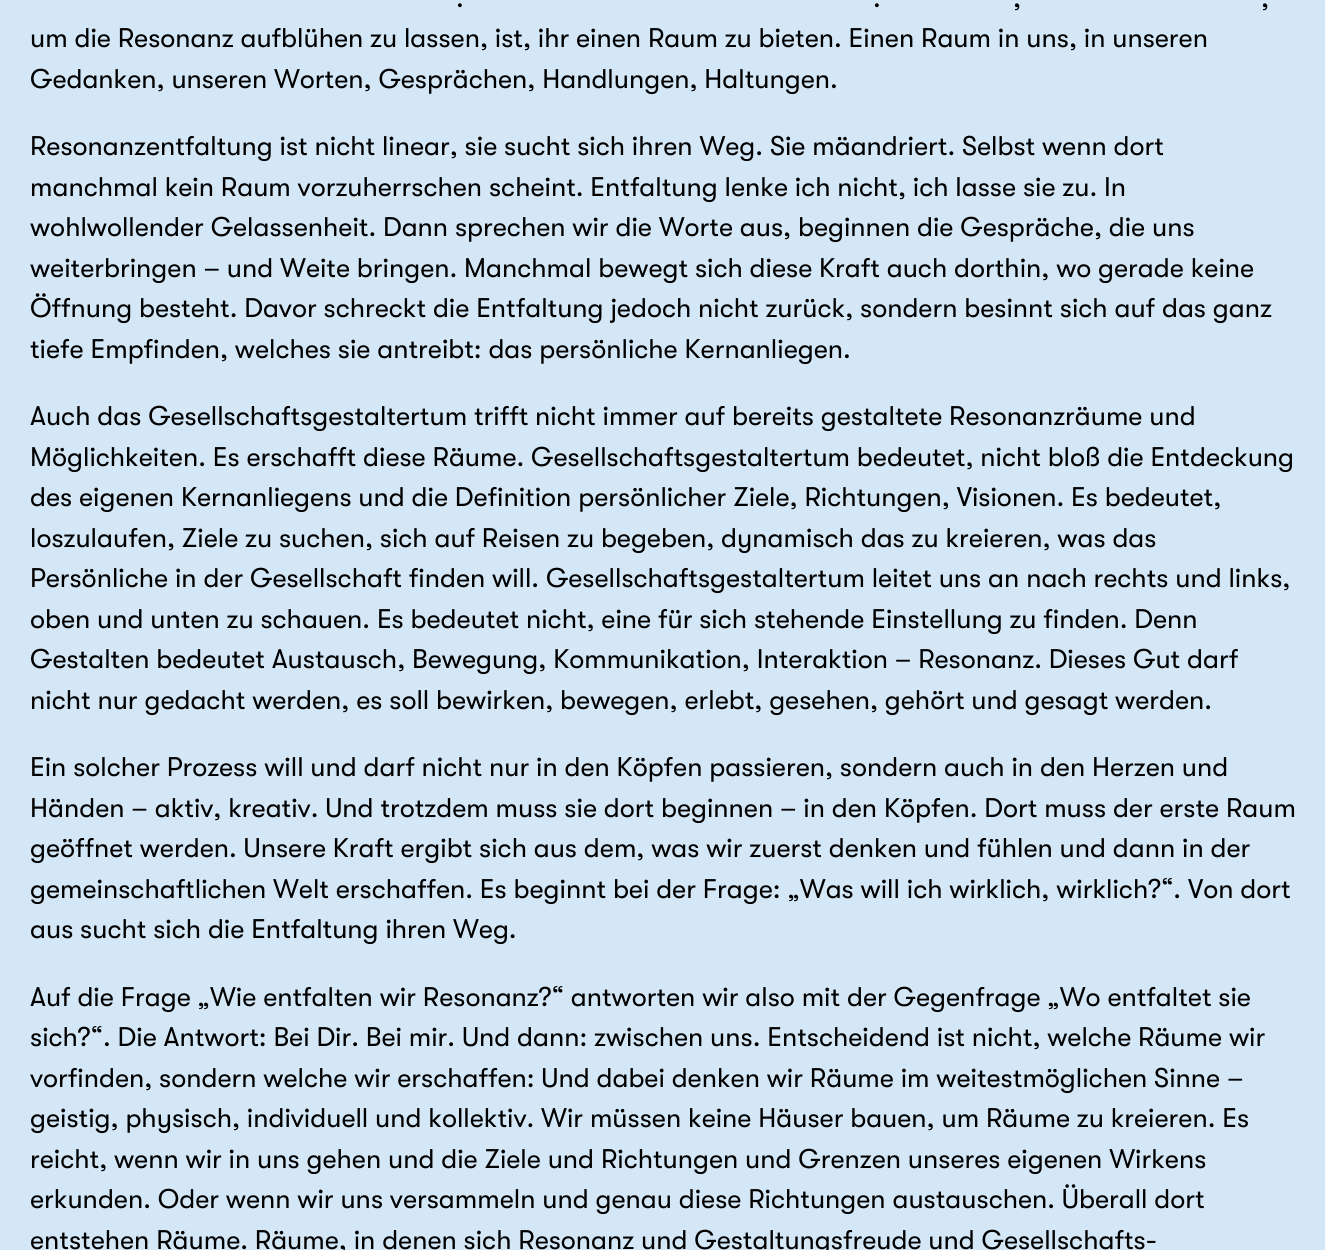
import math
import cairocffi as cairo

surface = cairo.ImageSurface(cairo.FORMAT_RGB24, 1325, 1250)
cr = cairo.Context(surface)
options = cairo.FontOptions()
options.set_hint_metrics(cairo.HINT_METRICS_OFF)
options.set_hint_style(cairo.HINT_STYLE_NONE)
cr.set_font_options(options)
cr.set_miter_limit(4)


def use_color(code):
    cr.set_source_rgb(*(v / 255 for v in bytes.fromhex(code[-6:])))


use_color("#d4e7f7")
cr.paint()
cr.select_font_face("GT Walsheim")
cr.set_font_size(27)
use_color("#000000")
cr.move_to(456, 7)
cr.show_text(".")
cr.move_to(873, 7)
cr.show_text(".")
cr.move_to(1013, 7)
cr.show_text(",")
cr.move_to(1261, 7)
cr.show_text(",")
cr.move_to(30, 47)
cr.show_text("um die Resonanz aufblühen zu lassen, ist, ihr einen Raum zu bieten. Einen Raum in uns, in unseren")
cr.move_to(30, 88)
cr.show_text("Gedanken, unseren Worten, Gesprächen, Handlungen, Haltungen.")
cr.move_to(30, 155)
cr.show_text("Resonanzentfaltung ist nicht linear, sie sucht sich ihren Weg. Sie mäandriert. Selbst wenn dort")
cr.move_to(30, 196)
cr.show_text("manchmal kein Raum vorzuherrschen scheint. Entfaltung lenke ich nicht, ich lasse sie zu. In")
cr.move_to(30, 236)
cr.show_text("wohlwollender Gelassenheit. Dann sprechen wir die Worte aus, beginnen die Gespräche, die uns")
cr.move_to(30, 277)
cr.show_text("weiterbringen – und Weite bringen. Manchmal bewegt sich diese Kraft auch dorthin, wo gerade keine")
cr.move_to(30, 317)
cr.show_text("Öffnung besteht. Davor schreckt die Entfaltung jedoch nicht zurück, sondern besinnt sich auf das ganz")
cr.move_to(30, 358)
cr.show_text("tiefe Empfinden, welches sie antreibt: das persönliche Kernanliegen.")
cr.move_to(30, 425)
cr.show_text("Auch das Gesellschaftsgestaltertum trifft nicht immer auf bereits gestaltete Resonanzräume und")
cr.move_to(30, 466)
cr.show_text("Möglichkeiten. Es erschafft diese Räume. Gesellschaftsgestaltertum bedeutet, nicht bloß die Entdeckung")
cr.move_to(30, 506)
cr.show_text("des eigenen Kernanliegens und die Definition persönlicher Ziele, Richtungen, Visionen. Es bedeutet,")
cr.move_to(30, 547)
cr.show_text("loszulaufen, Ziele zu suchen, sich auf Reisen zu begeben, dynamisch das zu kreieren, was das")
cr.move_to(30, 587)
cr.show_text("Persönliche in der Gesellschaft finden will. Gesellschaftsgestaltertum leitet uns an nach rechts und links,")
cr.move_to(30, 628)
cr.show_text("oben und unten zu schauen. Es bedeutet nicht, eine für sich stehende Einstellung zu finden. Denn")
cr.move_to(30, 668)
cr.show_text("Gestalten bedeutet Austausch, Bewegung, Kommunikation, Interaktion – Resonanz. Dieses Gut darf")
cr.move_to(30, 709)
cr.show_text("nicht nur gedacht werden, es soll bewirken, bewegen, erlebt, gesehen, gehört und gesagt werden.")
cr.move_to(30, 776)
cr.show_text("Ein solcher Prozess will und darf nicht nur in den Köpfen passieren, sondern auch in den Herzen und")
cr.move_to(30, 817)
cr.show_text("Händen – aktiv, kreativ. Und trotzdem muss sie dort beginnen – in den Köpfen. Dort muss der erste Raum")
cr.move_to(30, 857)
cr.show_text("geöffnet werden. Unsere Kraft ergibt sich aus dem, was wir zuerst denken und fühlen und dann in der")
cr.move_to(30, 898)
cr.show_text("gemeinschaftlichen Welt erschaffen. Es beginnt bei der Frage: „Was will ich wirklich, wirklich?“. Von dort")
cr.move_to(30, 938)
cr.show_text("aus sucht sich die Entfaltung ihren Weg.")
cr.move_to(30, 1006)
cr.show_text("Auf die Frage „Wie entfalten wir Resonanz?“ antworten wir also mit der Gegenfrage „Wo entfaltet sie")
cr.move_to(30, 1046)
cr.show_text("sich?“. Die Antwort: Bei Dir. Bei mir. Und dann: zwischen uns. Entscheidend ist nicht, welche Räume wir")
cr.move_to(30, 1087)
cr.show_text("vorfinden, sondern welche wir erschaffen: Und dabei denken wir Räume im weitestmöglichen Sinne –")
cr.move_to(30, 1127)
cr.show_text("geistig, physisch, individuell und kollektiv. Wir müssen keine Häuser bauen, um Räume zu kreieren. Es")
cr.move_to(30, 1168)
cr.show_text("reicht, wenn wir in uns gehen und die Ziele und Richtungen und Grenzen unseres eigenen Wirkens")
cr.move_to(30, 1208)
cr.show_text("erkunden. Oder wenn wir uns versammeln und genau diese Richtungen austauschen. Überall dort")
cr.move_to(30, 1249)
cr.show_text("entstehen Räume. Räume, in denen sich Resonanz und Gestaltungsfreude und Gesellschafts-")
surface.write_to_png("result.png")
